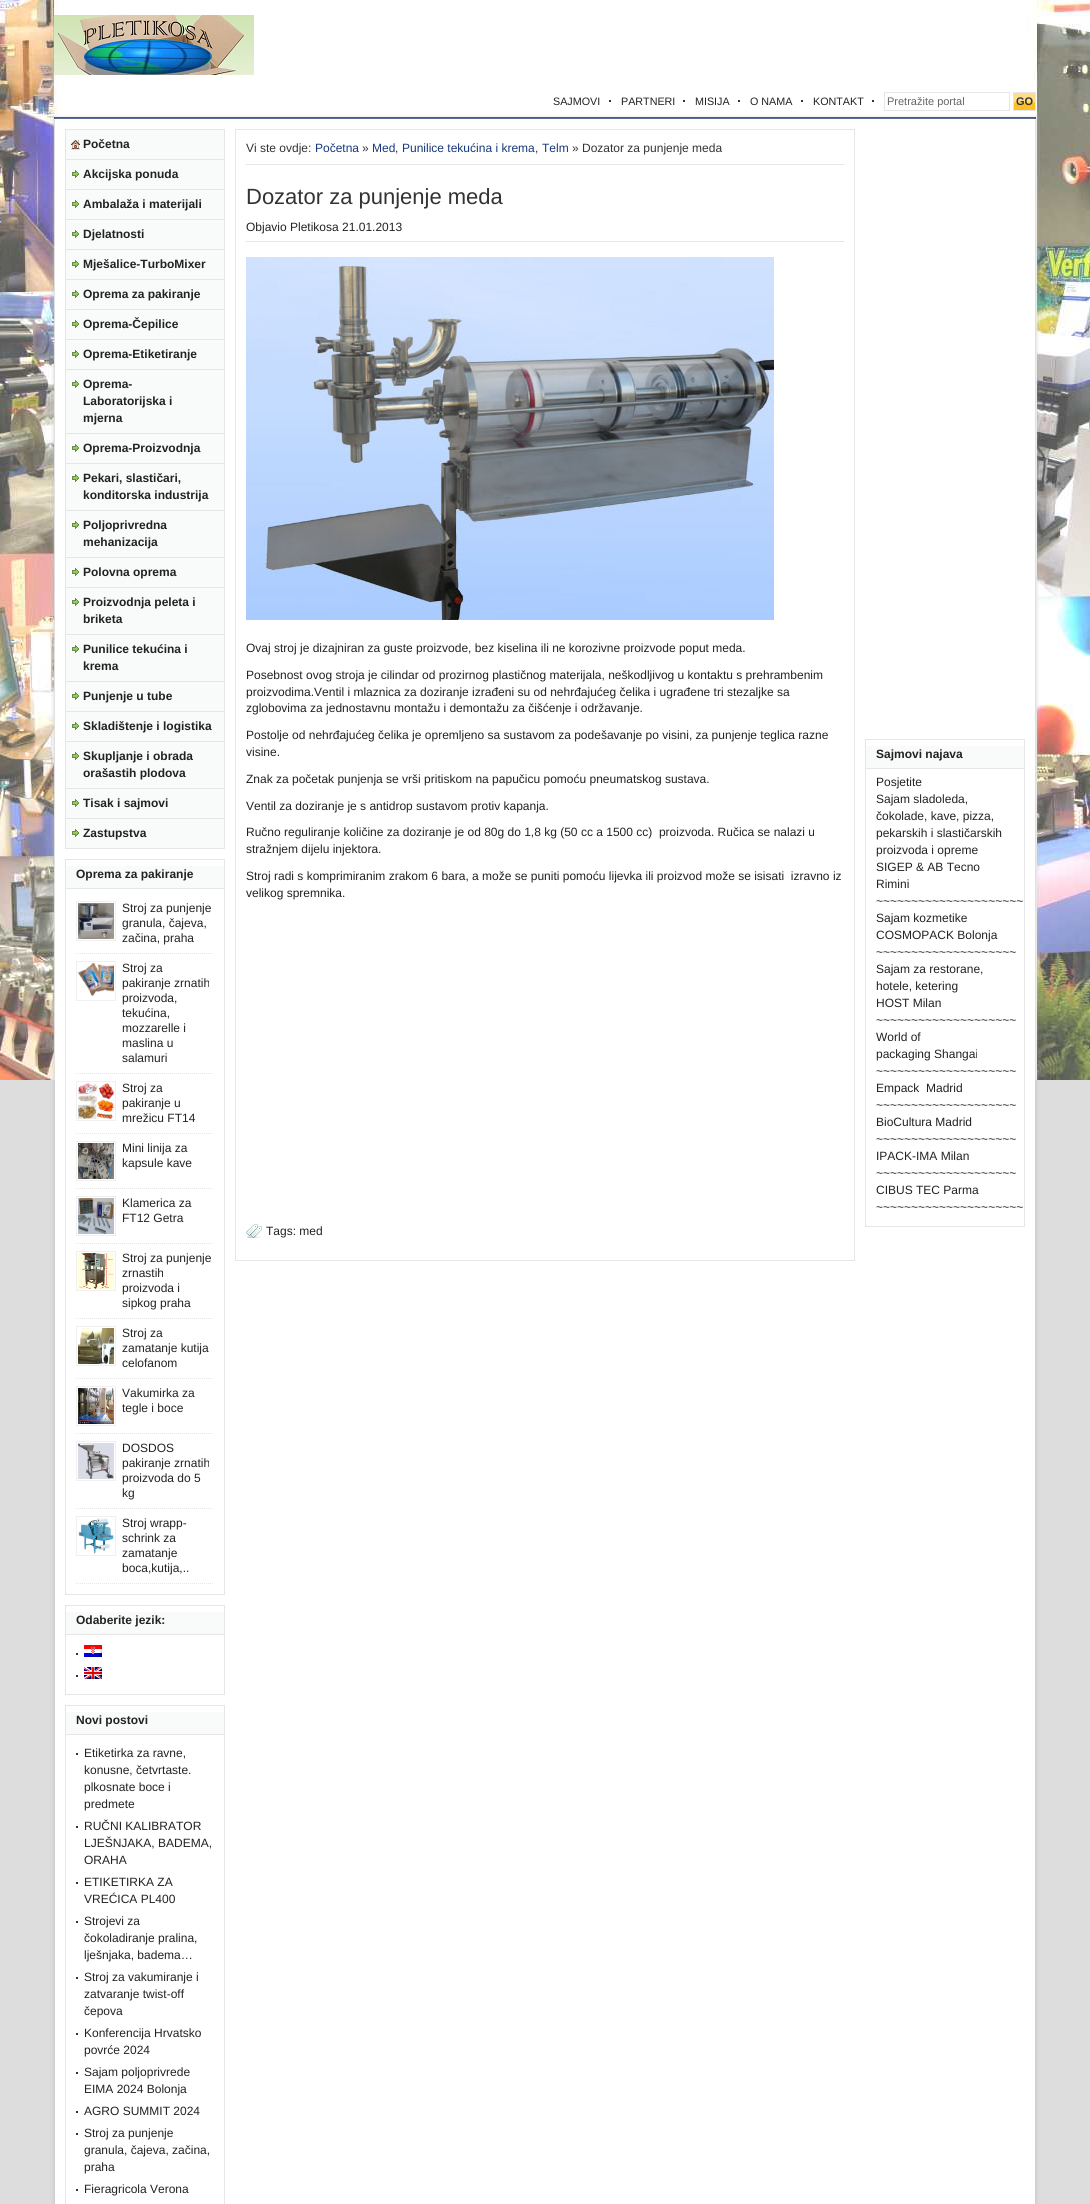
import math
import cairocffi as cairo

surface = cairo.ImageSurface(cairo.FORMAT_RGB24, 1090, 2204)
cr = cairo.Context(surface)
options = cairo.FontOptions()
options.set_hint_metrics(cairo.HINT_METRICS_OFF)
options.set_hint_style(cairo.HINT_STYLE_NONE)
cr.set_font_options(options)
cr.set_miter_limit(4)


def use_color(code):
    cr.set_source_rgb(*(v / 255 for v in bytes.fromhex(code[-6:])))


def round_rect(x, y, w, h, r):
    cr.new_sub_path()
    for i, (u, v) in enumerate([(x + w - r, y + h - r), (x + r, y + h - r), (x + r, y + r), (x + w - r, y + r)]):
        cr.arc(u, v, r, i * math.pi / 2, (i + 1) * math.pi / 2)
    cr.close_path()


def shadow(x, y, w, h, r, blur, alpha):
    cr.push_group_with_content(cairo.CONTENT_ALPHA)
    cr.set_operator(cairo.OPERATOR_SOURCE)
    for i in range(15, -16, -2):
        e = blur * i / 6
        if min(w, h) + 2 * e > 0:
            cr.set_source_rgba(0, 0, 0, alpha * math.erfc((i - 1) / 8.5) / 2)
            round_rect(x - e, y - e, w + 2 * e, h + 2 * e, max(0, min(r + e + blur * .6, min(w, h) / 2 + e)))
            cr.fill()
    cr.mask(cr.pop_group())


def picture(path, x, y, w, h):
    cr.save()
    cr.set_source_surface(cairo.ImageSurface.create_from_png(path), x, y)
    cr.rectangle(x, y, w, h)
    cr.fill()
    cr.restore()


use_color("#dddddd")
cr.paint()
picture("img1.png", 0, 0, 1090, 1080)
picture("img2.png", 54, 15, 200, 60)
use_color("#16387c")
cr.rectangle(54, 117, 982, 2)
cr.fill()
use_color("#333333")
cr.rectangle(609, 100, 2, 2)
cr.fill()
cr.select_font_face("Liberation Sans")
cr.set_font_size(10.75)
use_color("#222222")
cr.move_to(553, 105)
cr.show_text("SAJMOVI")
use_color("#333333")
cr.rectangle(683, 100, 2, 2)
cr.fill()
use_color("#222222")
cr.move_to(621, 105)
cr.show_text("PARTNERI")
use_color("#333333")
cr.rectangle(738, 100, 2, 2)
cr.fill()
use_color("#222222")
cr.move_to(695, 105)
cr.show_text("MISIJA")
use_color("#333333")
cr.rectangle(801, 100, 2, 2)
cr.fill()
use_color("#222222")
cr.move_to(750, 105)
cr.show_text("O NAMA")
use_color("#333333")
cr.rectangle(872, 100, 2, 2)
cr.fill()
use_color("#222222")
cr.move_to(813, 105)
cr.show_text("KONTAKT")
use_color("#bbbbbb")
shadow(55, 119, 980, 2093, 0, 2.5, 1)
cr.rectangle(884.5, 92.5, 125, 18)
use_color("#e6e6e6")
cr.set_line_width(1)
cr.stroke()
cr.set_font_size(11)
use_color("#666666")
cr.move_to(887, 105)
cr.show_text("Pretražite portal")
picture("img3.png", 1014, 93, 21, 17)
cr.rectangle(1013.5, 92.5, 22, 18)
use_color("#e6e6e6")
cr.stroke()
cr.select_font_face("Liberation Sans", cairo.FONT_SLANT_NORMAL, cairo.FONT_WEIGHT_BOLD)
use_color("#333333")
cr.move_to(1016, 105)
cr.show_text("GO")
use_color("#ffffff")
cr.rectangle(55, 119, 980, 2085)
cr.fill()
use_color("#e6e6e6")
cr.rectangle(65, 129, 160, 1)
cr.fill()
use_color("#f9fafa")
cr.rectangle(66, 130, 158, 29)
cr.fill()
picture("img4.png", 71, 140, 9, 10)
use_color("#e6e6e6")
cr.rectangle(224, 130, 1, 719)
cr.fill()
cr.rectangle(65, 159, 160, 1)
cr.fill()
cr.rectangle(65, 130, 1, 30)
cr.fill()
cr.set_font_size(12)
use_color("#222222")
cr.move_to(83, 148)
cr.show_text("Početna")
use_color("#f9fafa")
cr.rectangle(66, 160, 158, 29)
cr.fill()
picture("img5.png", 71, 169, 9, 10)
use_color("#e6e6e6")
cr.rectangle(65, 189, 160, 1)
cr.fill()
cr.rectangle(65, 160, 1, 30)
cr.fill()
use_color("#222222")
cr.move_to(83, 178)
cr.show_text("Akcijska ponuda")
use_color("#f9fafa")
cr.rectangle(66, 190, 158, 29)
cr.fill()
picture("img5.png", 71, 199, 9, 10)
use_color("#e6e6e6")
cr.rectangle(65, 219, 160, 1)
cr.fill()
cr.rectangle(65, 190, 1, 30)
cr.fill()
use_color("#222222")
cr.move_to(83, 208)
cr.show_text("Ambalaža i materijali")
use_color("#f9fafa")
cr.rectangle(66, 220, 158, 29)
cr.fill()
picture("img5.png", 71, 229, 9, 10)
use_color("#e6e6e6")
cr.rectangle(65, 249, 160, 1)
cr.fill()
cr.rectangle(65, 220, 1, 30)
cr.fill()
use_color("#222222")
cr.move_to(83, 238)
cr.show_text("Djelatnosti")
use_color("#f9fafa")
cr.rectangle(66, 250, 158, 29)
cr.fill()
picture("img5.png", 71, 259, 9, 10)
use_color("#e6e6e6")
cr.rectangle(65, 279, 160, 1)
cr.fill()
cr.rectangle(65, 250, 1, 30)
cr.fill()
use_color("#222222")
cr.move_to(83, 268)
cr.show_text("Mješalice-TurboMixer")
use_color("#f9fafa")
cr.rectangle(66, 280, 158, 29)
cr.fill()
picture("img5.png", 71, 289, 9, 10)
use_color("#e6e6e6")
cr.rectangle(65, 309, 160, 1)
cr.fill()
cr.rectangle(65, 280, 1, 30)
cr.fill()
use_color("#222222")
cr.move_to(83, 298)
cr.show_text("Oprema za pakiranje")
use_color("#f9fafa")
cr.rectangle(66, 310, 158, 29)
cr.fill()
picture("img5.png", 71, 319, 9, 10)
use_color("#e6e6e6")
cr.rectangle(65, 339, 160, 1)
cr.fill()
cr.rectangle(65, 310, 1, 30)
cr.fill()
use_color("#222222")
cr.move_to(83, 328)
cr.show_text("Oprema-Čepilice")
use_color("#f9fafa")
cr.rectangle(66, 340, 158, 29)
cr.fill()
picture("img5.png", 71, 349, 9, 10)
use_color("#e6e6e6")
cr.rectangle(65, 369, 160, 1)
cr.fill()
cr.rectangle(65, 340, 1, 30)
cr.fill()
use_color("#222222")
cr.move_to(83, 358)
cr.show_text("Oprema-Etiketiranje")
use_color("#f9fafa")
cr.rectangle(66, 370, 158, 63)
cr.fill()
picture("img5.png", 71, 379, 9, 10)
use_color("#e6e6e6")
cr.rectangle(65, 433, 160, 1)
cr.fill()
cr.rectangle(65, 370, 1, 64)
cr.fill()
use_color("#222222")
cr.move_to(83, 388)
cr.show_text("Oprema-")
cr.move_to(83, 405)
cr.show_text("Laboratorijska i")
cr.move_to(83, 422)
cr.show_text("mjerna")
use_color("#f9fafa")
cr.rectangle(66, 434, 158, 29)
cr.fill()
picture("img5.png", 71, 443, 9, 10)
use_color("#e6e6e6")
cr.rectangle(65, 463, 160, 1)
cr.fill()
cr.rectangle(65, 434, 1, 30)
cr.fill()
use_color("#222222")
cr.move_to(83, 452)
cr.show_text("Oprema-Proizvodnja")
use_color("#f9fafa")
cr.rectangle(66, 464, 158, 46)
cr.fill()
picture("img5.png", 71, 473, 9, 10)
use_color("#e6e6e6")
cr.rectangle(65, 510, 160, 1)
cr.fill()
cr.rectangle(65, 464, 1, 47)
cr.fill()
use_color("#222222")
cr.move_to(83, 482)
cr.show_text("Pekari, slastičari,")
cr.move_to(83, 499)
cr.show_text("konditorska industrija")
use_color("#f9fafa")
cr.rectangle(66, 511, 158, 46)
cr.fill()
picture("img5.png", 71, 520, 9, 10)
use_color("#e6e6e6")
cr.rectangle(65, 557, 160, 1)
cr.fill()
cr.rectangle(65, 511, 1, 47)
cr.fill()
use_color("#222222")
cr.move_to(83, 529)
cr.show_text("Poljoprivredna")
cr.move_to(83, 546)
cr.show_text("mehanizacija")
use_color("#f9fafa")
cr.rectangle(66, 558, 158, 29)
cr.fill()
picture("img5.png", 71, 567, 9, 10)
use_color("#e6e6e6")
cr.rectangle(65, 587, 160, 1)
cr.fill()
cr.rectangle(65, 558, 1, 30)
cr.fill()
use_color("#222222")
cr.move_to(83, 576)
cr.show_text("Polovna oprema")
use_color("#f9fafa")
cr.rectangle(66, 588, 158, 46)
cr.fill()
picture("img5.png", 71, 597, 9, 10)
use_color("#e6e6e6")
cr.rectangle(65, 634, 160, 1)
cr.fill()
cr.rectangle(65, 588, 1, 47)
cr.fill()
use_color("#222222")
cr.move_to(83, 606)
cr.show_text("Proizvodnja peleta i")
cr.move_to(83, 623)
cr.show_text("briketa")
use_color("#f9fafa")
cr.rectangle(66, 635, 158, 46)
cr.fill()
picture("img5.png", 71, 644, 9, 10)
use_color("#e6e6e6")
cr.rectangle(65, 681, 160, 1)
cr.fill()
cr.rectangle(65, 635, 1, 47)
cr.fill()
use_color("#222222")
cr.move_to(83, 653)
cr.show_text("Punilice tekućina i")
cr.move_to(83, 670)
cr.show_text("krema")
use_color("#f9fafa")
cr.rectangle(66, 682, 158, 29)
cr.fill()
picture("img5.png", 71, 691, 9, 10)
use_color("#e6e6e6")
cr.rectangle(65, 711, 160, 1)
cr.fill()
cr.rectangle(65, 682, 1, 30)
cr.fill()
use_color("#222222")
cr.move_to(83, 700)
cr.show_text("Punjenje u tube")
use_color("#f9fafa")
cr.rectangle(66, 712, 158, 29)
cr.fill()
picture("img5.png", 71, 721, 9, 10)
use_color("#e6e6e6")
cr.rectangle(65, 741, 160, 1)
cr.fill()
cr.rectangle(65, 712, 1, 30)
cr.fill()
use_color("#222222")
cr.move_to(83, 730)
cr.show_text("Skladištenje i logistika")
use_color("#f9fafa")
cr.rectangle(66, 742, 158, 46)
cr.fill()
picture("img5.png", 71, 751, 9, 10)
use_color("#e6e6e6")
cr.rectangle(65, 788, 160, 1)
cr.fill()
cr.rectangle(65, 742, 1, 47)
cr.fill()
use_color("#222222")
cr.move_to(83, 760)
cr.show_text("Skupljanje i obrada")
cr.move_to(83, 777)
cr.show_text("orašastih plodova")
use_color("#f9fafa")
cr.rectangle(66, 789, 158, 29)
cr.fill()
picture("img5.png", 71, 798, 9, 10)
use_color("#e6e6e6")
cr.rectangle(65, 818, 160, 1)
cr.fill()
cr.rectangle(65, 789, 1, 30)
cr.fill()
use_color("#222222")
cr.move_to(83, 807)
cr.show_text("Tisak i sajmovi")
use_color("#f9fafa")
cr.rectangle(66, 819, 158, 29)
cr.fill()
picture("img5.png", 71, 828, 9, 10)
use_color("#e6e6e6")
cr.rectangle(65, 848, 160, 1)
cr.fill()
cr.rectangle(65, 819, 1, 30)
cr.fill()
use_color("#222222")
cr.move_to(83, 837)
cr.show_text("Zastupstva")
use_color("#f9fafa")
cr.rectangle(66, 866, 158, 22)
cr.fill()
cr.rectangle(65.5, 859.5, 159, 29)
use_color("#e6e6e6")
cr.stroke()
use_color("#222222")
cr.move_to(76, 878)
cr.show_text("Oprema za pakiranje")
use_color("#e6e6e6")
cr.rectangle(224, 889, 1, 706)
cr.fill()
cr.rectangle(65, 1594, 160, 1)
cr.fill()
cr.rectangle(65, 889, 1, 706)
cr.fill()
cr.new_path()
cr.move_to(76, 953.5)
cr.line_to(214, 953.5)
cr.set_dash([1, 1])
cr.stroke()
cr.rectangle(76.5, 901.5, 39, 39)
use_color("#f0f0f0")
cr.set_dash([])
cr.stroke()
picture("img6.png", 78, 903, 36, 36)
cr.select_font_face("Liberation Sans")
use_color("#222222")
cr.move_to(122, 912)
cr.show_text("Stroj za punjenje")
cr.move_to(122, 927)
cr.show_text("granula, čajeva,")
cr.move_to(122, 942)
cr.show_text("začina, praha")
cr.new_path()
cr.move_to(76, 1073.5)
cr.line_to(214, 1073.5)
use_color("#e6e6e6")
cr.set_dash([1, 1])
cr.stroke()
cr.rectangle(76.5, 961.5, 39, 39)
use_color("#f0f0f0")
cr.set_dash([])
cr.stroke()
picture("img7.png", 78, 963, 36, 33)
use_color("#222222")
cr.move_to(122, 972)
cr.show_text("Stroj za")
cr.move_to(122, 987)
cr.show_text("pakiranje zrnatih")
cr.move_to(122, 1002)
cr.show_text("proizvoda,")
cr.move_to(122, 1017)
cr.show_text("tekućina,")
cr.move_to(122, 1032)
cr.show_text("mozzarelle i")
cr.move_to(122, 1047)
cr.show_text("maslina u")
cr.move_to(122, 1062)
cr.show_text("salamuri")
cr.new_path()
cr.move_to(76, 1133.5)
cr.line_to(214, 1133.5)
use_color("#e6e6e6")
cr.set_dash([1, 1])
cr.stroke()
cr.rectangle(76.5, 1081.5, 39, 39)
use_color("#f0f0f0")
cr.set_dash([])
cr.stroke()
picture("img8.png", 78, 1083, 36, 36)
use_color("#222222")
cr.move_to(122, 1092)
cr.show_text("Stroj za")
cr.move_to(122, 1107)
cr.show_text("pakiranje u")
cr.move_to(122, 1122)
cr.show_text("mrežicu FT14")
cr.new_path()
cr.move_to(76, 1188.5)
cr.line_to(214, 1188.5)
use_color("#e6e6e6")
cr.set_dash([1, 1])
cr.stroke()
cr.rectangle(76.5, 1141.5, 39, 39)
use_color("#f0f0f0")
cr.set_dash([])
cr.stroke()
picture("img9.png", 78, 1143, 36, 36)
use_color("#222222")
cr.move_to(122, 1152)
cr.show_text("Mini linija za")
cr.move_to(122, 1167)
cr.show_text("kapsule kave")
cr.new_path()
cr.move_to(76, 1243.5)
cr.line_to(214, 1243.5)
use_color("#e6e6e6")
cr.set_dash([1, 1])
cr.stroke()
cr.rectangle(76.5, 1196.5, 39, 39)
use_color("#f0f0f0")
cr.set_dash([])
cr.stroke()
picture("img10.png", 78, 1198, 36, 36)
use_color("#222222")
cr.move_to(122, 1207)
cr.show_text("Klamerica za")
cr.move_to(122, 1222)
cr.show_text("FT12 Getra")
cr.new_path()
cr.move_to(76, 1318.5)
cr.line_to(214, 1318.5)
use_color("#e6e6e6")
cr.set_dash([1, 1])
cr.stroke()
cr.rectangle(76.5, 1251.5, 39, 39)
use_color("#f0f0f0")
cr.set_dash([])
cr.stroke()
picture("img11.png", 78, 1253, 36, 36)
use_color("#222222")
cr.move_to(122, 1262)
cr.show_text("Stroj za punjenje")
cr.move_to(122, 1277)
cr.show_text("zrnastih")
cr.move_to(122, 1292)
cr.show_text("proizvoda i")
cr.move_to(122, 1307)
cr.show_text("sipkog praha")
cr.new_path()
cr.move_to(76, 1378.5)
cr.line_to(214, 1378.5)
use_color("#e6e6e6")
cr.set_dash([1, 1])
cr.stroke()
cr.rectangle(76.5, 1326.5, 39, 39)
use_color("#f0f0f0")
cr.set_dash([])
cr.stroke()
picture("img12.png", 78, 1328, 36, 36)
use_color("#222222")
cr.move_to(122, 1337)
cr.show_text("Stroj za")
cr.move_to(122, 1352)
cr.show_text("zamatanje kutija")
cr.move_to(122, 1367)
cr.show_text("celofanom")
cr.new_path()
cr.move_to(76, 1433.5)
cr.line_to(214, 1433.5)
use_color("#e6e6e6")
cr.set_dash([1, 1])
cr.stroke()
cr.rectangle(76.5, 1386.5, 39, 39)
use_color("#f0f0f0")
cr.set_dash([])
cr.stroke()
picture("img13.png", 78, 1388, 36, 36)
use_color("#222222")
cr.move_to(122, 1397)
cr.show_text("Vakumirka za")
cr.move_to(122, 1412)
cr.show_text("tegle i boce")
cr.new_path()
cr.move_to(76, 1508.5)
cr.line_to(214, 1508.5)
use_color("#e6e6e6")
cr.set_dash([1, 1])
cr.stroke()
cr.rectangle(76.5, 1441.5, 39, 39)
use_color("#f0f0f0")
cr.set_dash([])
cr.stroke()
picture("img14.png", 78, 1443, 36, 36)
use_color("#222222")
cr.move_to(122, 1452)
cr.show_text("DOSDOS")
cr.move_to(122, 1467)
cr.show_text("pakiranje zrnatih")
cr.move_to(122, 1482)
cr.show_text("proizvoda do 5")
cr.move_to(122, 1497)
cr.show_text("kg")
cr.new_path()
cr.move_to(76, 1583.5)
cr.line_to(214, 1583.5)
use_color("#e6e6e6")
cr.set_dash([1, 1])
cr.stroke()
cr.rectangle(76.5, 1516.5, 39, 39)
use_color("#f0f0f0")
cr.set_dash([])
cr.stroke()
picture("img15.png", 78, 1518, 36, 36)
use_color("#222222")
cr.move_to(122, 1527)
cr.show_text("Stroj wrapp-")
cr.move_to(122, 1542)
cr.show_text("schrink za")
cr.move_to(122, 1557)
cr.show_text("zamatanje")
cr.move_to(122, 1572)
cr.show_text("boca,kutija,..")
use_color("#f9fafa")
cr.rectangle(66, 1612, 158, 22)
cr.fill()
cr.rectangle(65.5, 1605.5, 159, 29)
use_color("#e6e6e6")
cr.stroke()
cr.select_font_face("Liberation Sans", cairo.FONT_SLANT_NORMAL, cairo.FONT_WEIGHT_BOLD)
use_color("#222222")
cr.move_to(76, 1624)
cr.show_text("Odaberite jezik:")
use_color("#e6e6e6")
cr.rectangle(224, 1635, 1, 60)
cr.fill()
cr.rectangle(65, 1694, 160, 1)
cr.fill()
cr.rectangle(65, 1635, 1, 60)
cr.fill()
use_color("#333333")
cr.rectangle(76, 1653, 2, 2)
cr.fill()
picture("img16.png", 84, 1645, 18, 12)
cr.rectangle(76, 1675, 2, 2)
cr.fill()
picture("img17.png", 84, 1667, 18, 12)
use_color("#f9fafa")
cr.rectangle(66, 1712, 158, 22)
cr.fill()
cr.rectangle(65.5, 1705.5, 159, 29)
use_color("#e6e6e6")
cr.stroke()
use_color("#222222")
cr.move_to(76, 1724)
cr.show_text("Novi postovi")
use_color("#e6e6e6")
cr.rectangle(224, 1735, 1, 469)
cr.fill()
cr.rectangle(65, 1735, 1, 469)
cr.fill()
use_color("#333333")
cr.rectangle(76, 1753, 2, 2)
cr.fill()
cr.select_font_face("Liberation Sans")
use_color("#222222")
cr.move_to(84, 1757)
cr.show_text("Etiketirka za ravne,")
cr.move_to(84, 1774)
cr.show_text("konusne, četvrtaste.")
cr.move_to(84, 1791)
cr.show_text("plkosnate boce i")
cr.move_to(84, 1808)
cr.show_text("predmete")
use_color("#333333")
cr.rectangle(76, 1826, 2, 2)
cr.fill()
use_color("#222222")
cr.move_to(84, 1830)
cr.show_text("RUČNI KALIBRATOR")
cr.move_to(84, 1847)
cr.show_text("LJEŠNJAKA, BADEMA,")
cr.move_to(84, 1864)
cr.show_text("ORAHA")
use_color("#333333")
cr.rectangle(76, 1882, 2, 2)
cr.fill()
use_color("#222222")
cr.move_to(84, 1886)
cr.show_text("ETIKETIRKA ZA")
cr.move_to(84, 1903)
cr.show_text("VREĆICA PL400")
use_color("#333333")
cr.rectangle(76, 1921, 2, 2)
cr.fill()
use_color("#222222")
cr.move_to(84, 1925)
cr.show_text("Strojevi za")
cr.move_to(84, 1942)
cr.show_text("čokoladiranje pralina,")
cr.move_to(84, 1959)
cr.show_text("lješnjaka, badema…")
use_color("#333333")
cr.rectangle(76, 1977, 2, 2)
cr.fill()
use_color("#222222")
cr.move_to(84, 1981)
cr.show_text("Stroj za vakumiranje i")
cr.move_to(84, 1998)
cr.show_text("zatvaranje twist-off")
cr.move_to(84, 2015)
cr.show_text("čepova")
use_color("#333333")
cr.rectangle(76, 2033, 2, 2)
cr.fill()
use_color("#222222")
cr.move_to(84, 2037)
cr.show_text("Konferencija Hrvatsko")
cr.move_to(84, 2054)
cr.show_text("povrće 2024")
use_color("#333333")
cr.rectangle(76, 2072, 2, 2)
cr.fill()
use_color("#222222")
cr.move_to(84, 2076)
cr.show_text("Sajam poljoprivrede")
cr.move_to(84, 2093)
cr.show_text("EIMA 2024 Bolonja")
use_color("#333333")
cr.rectangle(76, 2111, 2, 2)
cr.fill()
use_color("#222222")
cr.move_to(84, 2115)
cr.show_text("AGRO SUMMIT 2024")
use_color("#333333")
cr.rectangle(76, 2133, 2, 2)
cr.fill()
use_color("#222222")
cr.move_to(84, 2137)
cr.show_text("Stroj za punjenje")
cr.move_to(84, 2154)
cr.show_text("granula, čajeva, začina,")
cr.move_to(84, 2171)
cr.show_text("praha")
use_color("#333333")
cr.rectangle(76, 2189, 2, 2)
cr.fill()
use_color("#222222")
cr.move_to(84, 2193)
cr.show_text("Fieragricola Verona")
cr.rectangle(235.5, 129.5, 619, 1131)
use_color("#e6e6e6")
cr.stroke()
cr.rectangle(246, 164, 598, 1)
cr.fill()
use_color("#333333")
cr.move_to(246, 152)
cr.show_text("Vi ste ovdje:")
use_color("#16387c")
cr.move_to(315, 152)
cr.show_text("Početna")
use_color("#333333")
cr.move_to(362, 152)
cr.show_text("»")
use_color("#16387c")
cr.move_to(372, 152)
cr.show_text("Med")
use_color("#333333")
cr.move_to(395, 152)
cr.show_text(",")
use_color("#16387c")
cr.move_to(402, 152)
cr.show_text("Punilice tekućina i krema")
use_color("#333333")
cr.move_to(535, 152)
cr.show_text(",")
use_color("#16387c")
cr.move_to(542, 152)
cr.show_text("Telm")
use_color("#333333")
cr.move_to(572, 152)
cr.show_text("» Dozator za punjenje meda")
cr.set_font_size(22)
cr.move_to(246, 204)
cr.show_text("Dozator za punjenje meda")
cr.set_font_size(12)
use_color("#222222")
cr.move_to(246, 231)
cr.show_text("Objavio Pletikosa 21.01.2013")
use_color("#e6e6e6")
cr.rectangle(246, 241, 598, 1)
cr.fill()
picture("img18.png", 246, 257, 528, 363)
use_color("#222222")
cr.move_to(246, 652)
cr.show_text("Ovaj stroj je dizajniran za guste proizvode, bez kiselina ili ne korozivne proizvode poput meda.")
cr.move_to(246, 679)
cr.show_text("Posebnost ovog stroja je cilindar od prozirnog plastičnog materijala, neškodljivog u kontaktu s prehrambenim")
cr.move_to(246, 696)
cr.show_text("proizvodima.Ventil i mlaznica za doziranje izrađeni su od nehrđajućeg čelika i ugrađene tri stezaljke sa")
cr.move_to(246, 712)
cr.show_text("zglobovima za jednostavnu montažu i demontažu za čišćenje i održavanje.")
cr.move_to(246, 739)
cr.show_text("Postolje od nehrđajućeg čelika je opremljeno sa sustavom za podešavanje po visini, za punjenje teglica razne")
cr.move_to(246, 756)
cr.show_text("visine.")
cr.move_to(246, 783)
cr.show_text("Znak za početak punjenja se vrši pritiskom na papučicu pomoću pneumatskog sustava.")
cr.move_to(246, 810)
cr.show_text("Ventil za doziranje je s antidrop sustavom protiv kapanja.")
cr.move_to(246, 836)
cr.show_text("Ručno reguliranje količine za doziranje je od 80g do 1,8 kg (50 cc a 1500 cc)  proizvoda. Ručica se nalazi u")
cr.move_to(246, 853)
cr.show_text("stražnjem dijelu injektora.")
cr.move_to(246, 880)
cr.show_text("Stroj radi s komprimiranim zrakom 6 bara, a može se puniti pomoću lijevka ili proizvod može se isisati  izravno iz")
cr.move_to(246, 897)
cr.show_text("velikog spremnika.")
picture("img19.png", 246, 1224, 16, 14)
cr.move_to(266, 1235)
cr.show_text("Tags: med")
use_color("#f9fafa")
cr.rectangle(866, 746, 158, 22)
cr.fill()
cr.rectangle(865.5, 739.5, 159, 29)
use_color("#e6e6e6")
cr.stroke()
cr.select_font_face("Liberation Sans", cairo.FONT_SLANT_NORMAL, cairo.FONT_WEIGHT_BOLD)
use_color("#222222")
cr.move_to(876, 758)
cr.show_text("Sajmovi najava")
use_color("#e6e6e6")
cr.rectangle(1024, 769, 1, 458)
cr.fill()
cr.rectangle(865, 1226, 160, 1)
cr.fill()
cr.rectangle(865, 769, 1, 458)
cr.fill()
cr.select_font_face("Liberation Sans")
use_color("#222222")
cr.move_to(876, 786)
cr.show_text("Posjetite")
cr.move_to(876, 803)
cr.show_text("Sajam sladoleda,")
cr.move_to(876, 820)
cr.show_text("čokolade, kave, pizza,")
cr.move_to(876, 837)
cr.show_text("pekarskih i slastičarskih")
cr.move_to(876, 854)
cr.show_text("proizvoda i opreme")
cr.move_to(876, 871)
cr.show_text("SIGEP & AB Tecno")
cr.move_to(876, 888)
cr.show_text("Rimini")
cr.move_to(876, 905)
cr.show_text("~~~~~~~~~~~~~~~~~~~~~")
cr.move_to(876, 922)
cr.show_text("Sajam kozmetike")
cr.move_to(876, 939)
cr.show_text("COSMOPACK Bolonja")
cr.move_to(876, 956)
cr.show_text("~~~~~~~~~~~~~~~~~~~~")
cr.move_to(876, 973)
cr.show_text("Sajam za restorane,")
cr.move_to(876, 990)
cr.show_text("hotele, ketering")
cr.move_to(876, 1007)
cr.show_text("HOST Milan")
cr.move_to(876, 1024)
cr.show_text("~~~~~~~~~~~~~~~~~~~~")
cr.move_to(876, 1041)
cr.show_text("World of")
cr.move_to(876, 1058)
cr.show_text("packaging Shangai")
cr.move_to(876, 1075)
cr.show_text("~~~~~~~~~~~~~~~~~~~~")
cr.move_to(876, 1092)
cr.show_text("Empack  Madrid")
cr.move_to(876, 1109)
cr.show_text("~~~~~~~~~~~~~~~~~~~~")
cr.move_to(876, 1126)
cr.show_text("BioCultura Madrid")
cr.move_to(876, 1143)
cr.show_text("~~~~~~~~~~~~~~~~~~~~")
cr.move_to(876, 1160)
cr.show_text("IPACK-IMA Milan")
cr.move_to(876, 1177)
cr.show_text("~~~~~~~~~~~~~~~~~~~~")
cr.move_to(876, 1194)
cr.show_text("CIBUS TEC Parma")
cr.move_to(876, 1211)
cr.show_text("~~~~~~~~~~~~~~~~~~~~~")
surface.write_to_png("result.png")
